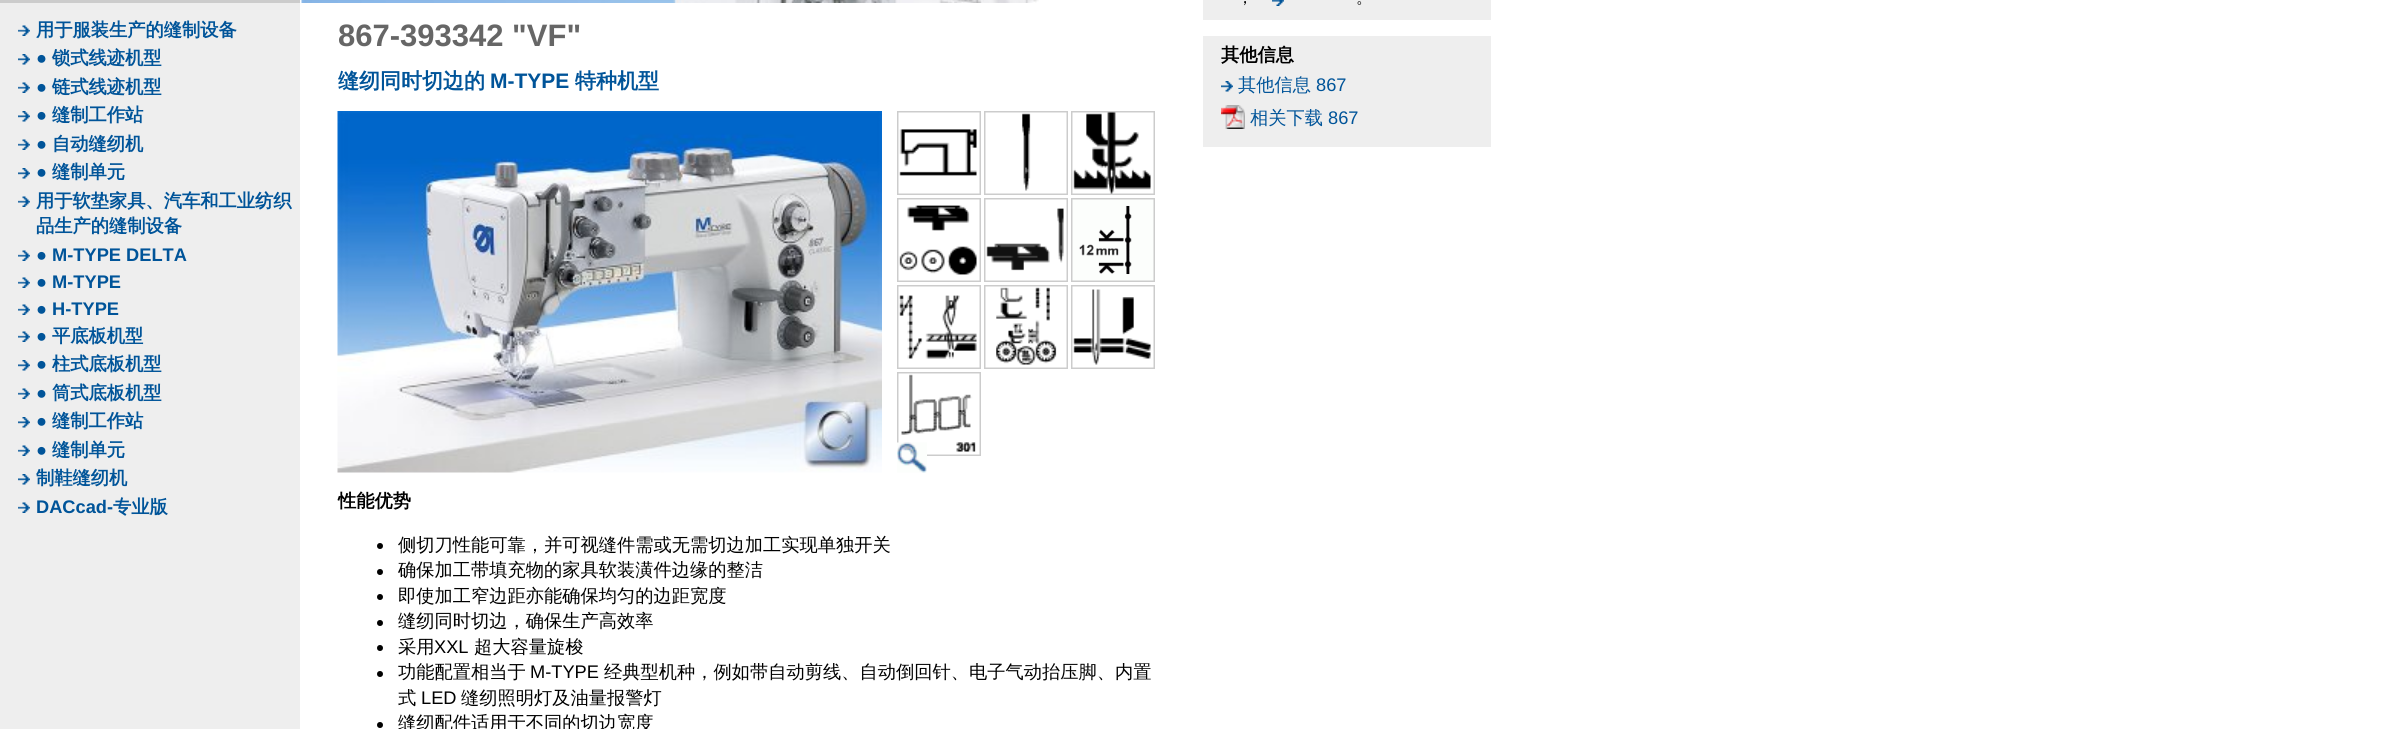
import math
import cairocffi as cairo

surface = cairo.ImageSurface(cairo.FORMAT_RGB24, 2391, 729)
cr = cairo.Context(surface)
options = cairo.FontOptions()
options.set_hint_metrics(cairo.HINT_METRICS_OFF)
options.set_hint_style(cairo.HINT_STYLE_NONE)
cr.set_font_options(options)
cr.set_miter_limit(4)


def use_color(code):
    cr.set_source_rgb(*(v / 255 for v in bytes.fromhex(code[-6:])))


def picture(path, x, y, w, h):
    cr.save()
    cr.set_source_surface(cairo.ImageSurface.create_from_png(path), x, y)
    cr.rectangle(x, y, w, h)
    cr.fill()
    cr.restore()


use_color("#ffffff")
cr.paint()
use_color("#eeeeee")
cr.rectangle(0, 3, 300, 726)
cr.fill()
use_color("#cccccc")
cr.rectangle(0, 0, 300, 3)
cr.fill()
picture("img1.png", 18, 25, 12, 11)
cr.select_font_face("WenQuanYi Zen Hei", cairo.FONT_SLANT_NORMAL, cairo.FONT_WEIGHT_BOLD)
cr.set_font_size(18.25)
use_color("#005499")
cr.move_to(36, 36)
cr.show_text("用于服装生产的缝制设备")
picture("img2.png", 18, 54, 12, 11)
cr.select_font_face("Liberation Sans", cairo.FONT_SLANT_NORMAL, cairo.FONT_WEIGHT_BOLD)
cr.move_to(36, 64)
cr.show_text("●")
cr.select_font_face("WenQuanYi Zen Hei", cairo.FONT_SLANT_NORMAL, cairo.FONT_WEIGHT_BOLD)
cr.move_to(52, 64)
cr.show_text("锁式线迹机型")
picture("img1.png", 18, 82, 12, 11)
cr.select_font_face("Liberation Sans", cairo.FONT_SLANT_NORMAL, cairo.FONT_WEIGHT_BOLD)
cr.move_to(36, 93)
cr.show_text("●")
cr.select_font_face("WenQuanYi Zen Hei", cairo.FONT_SLANT_NORMAL, cairo.FONT_WEIGHT_BOLD)
cr.move_to(52, 93)
cr.show_text("链式线迹机型")
picture("img2.png", 18, 111, 12, 11)
cr.select_font_face("Liberation Sans", cairo.FONT_SLANT_NORMAL, cairo.FONT_WEIGHT_BOLD)
cr.move_to(36, 121)
cr.show_text("●")
cr.select_font_face("WenQuanYi Zen Hei", cairo.FONT_SLANT_NORMAL, cairo.FONT_WEIGHT_BOLD)
cr.move_to(52, 121)
cr.show_text("缝制工作站")
picture("img1.png", 18, 139, 12, 11)
cr.select_font_face("Liberation Sans", cairo.FONT_SLANT_NORMAL, cairo.FONT_WEIGHT_BOLD)
cr.move_to(36, 150)
cr.show_text("●")
cr.select_font_face("WenQuanYi Zen Hei", cairo.FONT_SLANT_NORMAL, cairo.FONT_WEIGHT_BOLD)
cr.move_to(52, 150)
cr.show_text("自动缝纫机")
picture("img2.png", 18, 168, 12, 11)
cr.select_font_face("Liberation Sans", cairo.FONT_SLANT_NORMAL, cairo.FONT_WEIGHT_BOLD)
cr.move_to(36, 178)
cr.show_text("●")
cr.select_font_face("WenQuanYi Zen Hei", cairo.FONT_SLANT_NORMAL, cairo.FONT_WEIGHT_BOLD)
cr.move_to(52, 178)
cr.show_text("缝制单元")
picture("img1.png", 18, 196, 12, 11)
cr.move_to(36, 207)
cr.show_text("用于软垫家具、汽车和工业纺织")
cr.move_to(36, 232)
cr.show_text("品生产的缝制设备")
picture("img1.png", 18, 250, 12, 11)
cr.select_font_face("Liberation Sans", cairo.FONT_SLANT_NORMAL, cairo.FONT_WEIGHT_BOLD)
cr.move_to(36, 261)
cr.show_text("● M-TYPE DELTA")
picture("img1.png", 18, 277, 12, 11)
cr.move_to(36, 288)
cr.show_text("● M-TYPE")
picture("img1.png", 18, 304, 12, 11)
cr.move_to(36, 315)
cr.show_text("● H-TYPE")
picture("img1.png", 18, 331, 12, 11)
cr.move_to(36, 342)
cr.show_text("●")
cr.select_font_face("WenQuanYi Zen Hei", cairo.FONT_SLANT_NORMAL, cairo.FONT_WEIGHT_BOLD)
cr.move_to(52, 342)
cr.show_text("平底板机型")
picture("img2.png", 18, 360, 12, 11)
cr.select_font_face("Liberation Sans", cairo.FONT_SLANT_NORMAL, cairo.FONT_WEIGHT_BOLD)
cr.move_to(36, 370)
cr.show_text("●")
cr.select_font_face("WenQuanYi Zen Hei", cairo.FONT_SLANT_NORMAL, cairo.FONT_WEIGHT_BOLD)
cr.move_to(52, 370)
cr.show_text("柱式底板机型")
picture("img1.png", 18, 388, 12, 11)
cr.select_font_face("Liberation Sans", cairo.FONT_SLANT_NORMAL, cairo.FONT_WEIGHT_BOLD)
cr.move_to(36, 399)
cr.show_text("●")
cr.select_font_face("WenQuanYi Zen Hei", cairo.FONT_SLANT_NORMAL, cairo.FONT_WEIGHT_BOLD)
cr.move_to(52, 399)
cr.show_text("筒式底板机型")
picture("img2.png", 18, 417, 12, 11)
cr.select_font_face("Liberation Sans", cairo.FONT_SLANT_NORMAL, cairo.FONT_WEIGHT_BOLD)
cr.move_to(36, 427)
cr.show_text("●")
cr.select_font_face("WenQuanYi Zen Hei", cairo.FONT_SLANT_NORMAL, cairo.FONT_WEIGHT_BOLD)
cr.move_to(52, 427)
cr.show_text("缝制工作站")
picture("img1.png", 18, 445, 12, 11)
cr.select_font_face("Liberation Sans", cairo.FONT_SLANT_NORMAL, cairo.FONT_WEIGHT_BOLD)
cr.move_to(36, 456)
cr.show_text("●")
cr.select_font_face("WenQuanYi Zen Hei", cairo.FONT_SLANT_NORMAL, cairo.FONT_WEIGHT_BOLD)
cr.move_to(52, 456)
cr.show_text("缝制单元")
picture("img2.png", 18, 474, 12, 11)
cr.move_to(36, 484)
cr.show_text("制鞋缝纫机")
picture("img1.png", 18, 502, 12, 11)
cr.select_font_face("Liberation Sans", cairo.FONT_SLANT_NORMAL, cairo.FONT_WEIGHT_BOLD)
cr.move_to(36, 513)
cr.show_text("DACcad-")
cr.select_font_face("WenQuanYi Zen Hei", cairo.FONT_SLANT_NORMAL, cairo.FONT_WEIGHT_BOLD)
cr.move_to(113, 513)
cr.show_text("专业版")
picture("img3.png", 301, 0, 738, 3)
cr.select_font_face("Liberation Sans", cairo.FONT_SLANT_NORMAL, cairo.FONT_WEIGHT_BOLD)
cr.set_font_size(31)
use_color("#666666")
cr.move_to(338, 46)
cr.show_text("867-393342 \"VF\"")
cr.select_font_face("WenQuanYi Zen Hei", cairo.FONT_SLANT_NORMAL, cairo.FONT_WEIGHT_BOLD)
cr.set_font_size(21)
use_color("#005499")
cr.move_to(338, 88)
cr.show_text("缝纫同时切边的")
cr.select_font_face("Liberation Sans", cairo.FONT_SLANT_NORMAL, cairo.FONT_WEIGHT_BOLD)
cr.move_to(490, 88)
cr.show_text("M-TYPE")
cr.select_font_face("WenQuanYi Zen Hei", cairo.FONT_SLANT_NORMAL, cairo.FONT_WEIGHT_BOLD)
cr.move_to(575, 88)
cr.show_text("特种机型")
picture("img4.png", 337, 111, 545, 362)
cr.rectangle(898, 373, 82, 82)
use_color("#cccccc")
cr.stroke()
picture("img15.png", 898, 373, 82, 82)
picture("img5.png", 897, 442, 30, 31)
cr.rectangle(898, 112, 82, 82)
cr.stroke()
picture("img6.png", 898, 112, 82, 82)
cr.rectangle(985, 112, 82, 82)
cr.stroke()
picture("img7.png", 985, 112, 82, 82)
cr.rectangle(1072, 112, 82, 82)
cr.stroke()
picture("img8.png", 1072, 112, 82, 82)
cr.rectangle(898, 199, 82, 82)
cr.stroke()
picture("img9.png", 898, 199, 82, 82)
cr.rectangle(985, 199, 82, 82)
cr.stroke()
picture("img10.png", 985, 199, 82, 82)
cr.rectangle(1072, 199, 82, 82)
cr.stroke()
picture("img11.png", 1072, 199, 82, 82)
cr.rectangle(898, 286, 82, 82)
cr.stroke()
picture("img12.png", 898, 286, 82, 82)
cr.rectangle(985, 286, 82, 82)
cr.stroke()
picture("img13.png", 985, 286, 82, 82)
cr.rectangle(1072, 286, 82, 82)
cr.stroke()
picture("img14.png", 1072, 286, 82, 82)
cr.set_font_size(18.25)
use_color("#000000")
cr.move_to(338, 507)
cr.show_text("性能优势")
cr.new_path()
cr.arc(380, 546, 3, 0, 2 * math.pi)
cr.fill()
cr.select_font_face("WenQuanYi Zen Hei Medium")
cr.move_to(398, 551)
cr.show_text("侧切刀性能可靠，并可视缝件需或无需切边加工实现单独开关")
cr.new_path()
cr.arc(380, 572, 3, 0, 2 * math.pi)
cr.fill()
cr.move_to(398, 576)
cr.show_text("确保加工带填充物的家具软装潢件边缘的整洁")
cr.new_path()
cr.arc(380, 597, 3, 0, 2 * math.pi)
cr.fill()
cr.move_to(398, 602)
cr.show_text("即使加工窄边距亦能确保均匀的边距宽度")
cr.new_path()
cr.arc(380, 623, 3, 0, 2 * math.pi)
cr.fill()
cr.move_to(398, 627)
cr.show_text("缝纫同时切边，确保生产高效率")
cr.new_path()
cr.arc(380, 648, 3, 0, 2 * math.pi)
cr.fill()
cr.move_to(398, 653)
cr.show_text("采用")
cr.select_font_face("Liberation Sans")
cr.move_to(434, 653)
cr.show_text("XXL")
cr.select_font_face("WenQuanYi Zen Hei Medium")
cr.move_to(474, 653)
cr.show_text("超大容量旋梭")
cr.new_path()
cr.arc(380, 674, 3, 0, 2 * math.pi)
cr.fill()
cr.move_to(398, 678)
cr.show_text("功能配置相当于")
cr.select_font_face("Liberation Sans")
cr.move_to(530, 678)
cr.show_text("M-TYPE")
cr.select_font_face("WenQuanYi Zen Hei Medium")
cr.move_to(604, 678)
cr.show_text("经典型机种，例如带自动剪线、自动倒回针、电子气动抬压脚、内置")
cr.move_to(398, 704)
cr.show_text("式")
cr.select_font_face("Liberation Sans")
cr.move_to(421, 704)
cr.show_text("LED")
cr.select_font_face("WenQuanYi Zen Hei Medium")
cr.move_to(461, 704)
cr.show_text("缝纫照明灯及油量报警灯")
cr.new_path()
cr.arc(380, 725, 3, 0, 2 * math.pi)
cr.fill()
cr.move_to(398, 729)
cr.show_text("缝纫配件适用于不同的切边宽度")
use_color("#eeeeee")
cr.rectangle(1203, 0, 288, 20)
cr.fill()
cr.set_font_size(16)
use_color("#000000")
cr.move_to(1237, 3)
cr.show_text("，")
picture("img16.png", 1272, 0, 12, 6)
cr.move_to(1356, 3)
cr.show_text("。")
use_color("#eeeeee")
cr.rectangle(1203, 36, 288, 111)
cr.fill()
cr.select_font_face("WenQuanYi Zen Hei", cairo.FONT_SLANT_NORMAL, cairo.FONT_WEIGHT_BOLD)
cr.set_font_size(18.25)
use_color("#000000")
cr.move_to(1221, 61)
cr.show_text("其他信息")
picture("img17.png", 1221, 81, 12, 11)
cr.select_font_face("WenQuanYi Zen Hei Medium")
use_color("#005499")
cr.move_to(1238, 91)
cr.show_text("其他信息")
cr.select_font_face("Liberation Sans")
cr.move_to(1316, 91)
cr.show_text("867")
picture("img18.png", 1221, 105, 24, 24)
cr.select_font_face("WenQuanYi Zen Hei Medium")
cr.move_to(1250, 124)
cr.show_text("相关下载")
cr.select_font_face("Liberation Sans")
cr.move_to(1328, 124)
cr.show_text("867")
surface.write_to_png("result.png")
